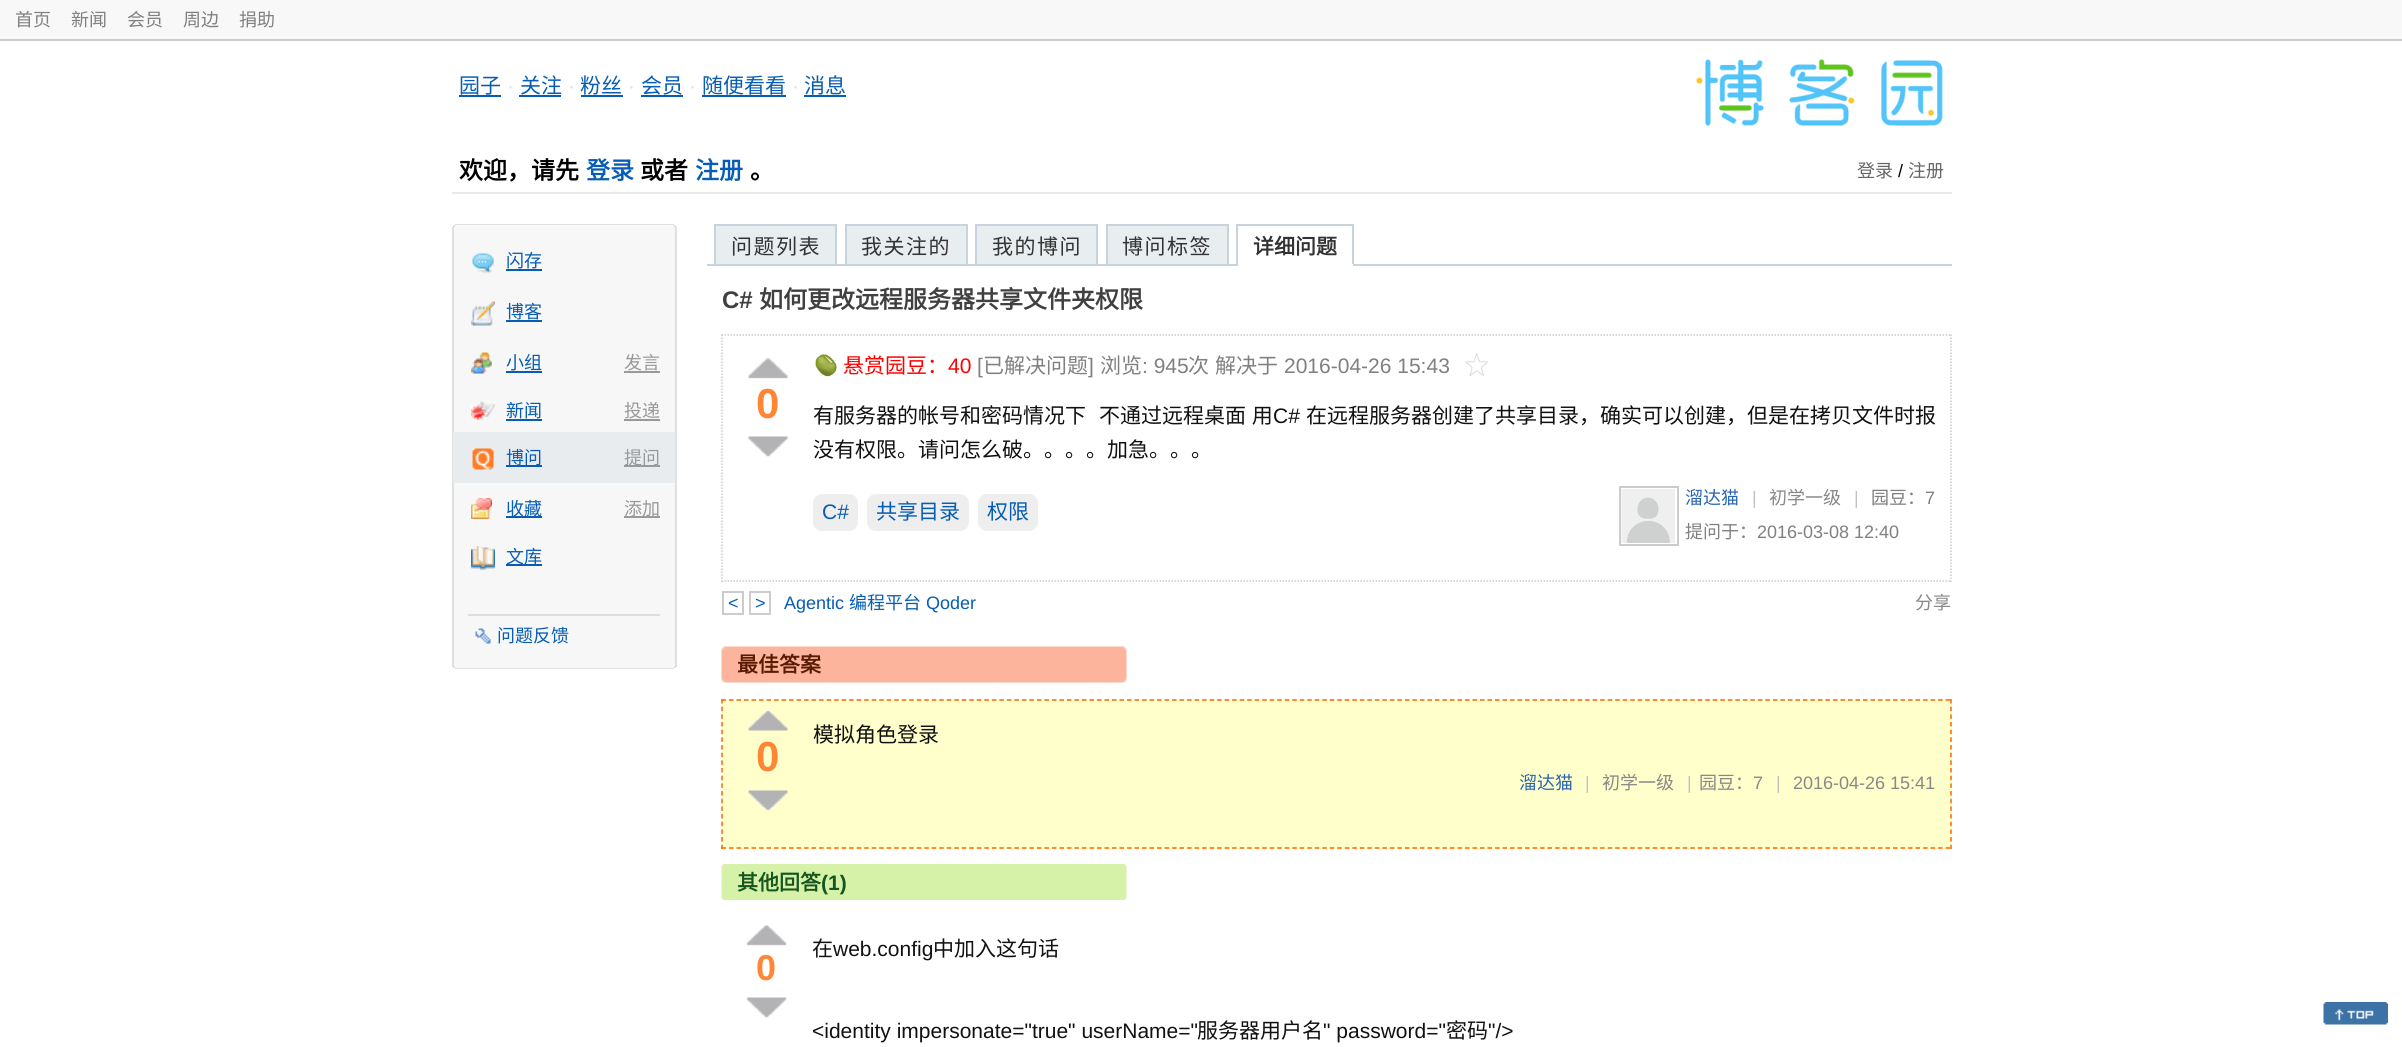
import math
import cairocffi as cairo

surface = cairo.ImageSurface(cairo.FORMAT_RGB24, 2402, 1047)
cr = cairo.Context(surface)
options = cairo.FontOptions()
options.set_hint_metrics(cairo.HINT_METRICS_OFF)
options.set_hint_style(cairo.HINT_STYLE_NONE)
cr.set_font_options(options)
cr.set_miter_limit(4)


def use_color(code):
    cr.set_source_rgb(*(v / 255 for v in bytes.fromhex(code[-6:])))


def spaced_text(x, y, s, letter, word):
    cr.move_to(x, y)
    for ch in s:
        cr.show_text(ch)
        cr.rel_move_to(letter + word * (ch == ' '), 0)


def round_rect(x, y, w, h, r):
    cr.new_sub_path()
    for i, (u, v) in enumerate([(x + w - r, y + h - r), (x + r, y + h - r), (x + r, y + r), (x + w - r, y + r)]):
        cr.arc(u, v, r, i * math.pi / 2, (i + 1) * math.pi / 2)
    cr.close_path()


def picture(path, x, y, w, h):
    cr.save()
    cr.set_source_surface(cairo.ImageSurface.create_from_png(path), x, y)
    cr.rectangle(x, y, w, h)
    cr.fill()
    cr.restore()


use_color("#ffffff")
cr.paint()
use_color("#f8f8f8")
cr.rectangle(0, 0, 2402, 39)
cr.fill()
use_color("#cccccc")
cr.rectangle(0, 39, 2402, 2)
cr.fill()
cr.select_font_face("Noto Sans CJK SC")
cr.set_font_size(18)
use_color("#808080")
cr.move_to(15, 26)
cr.show_text("首页")
cr.move_to(71, 26)
cr.show_text("新闻")
cr.move_to(127, 26)
cr.show_text("会员")
cr.move_to(183, 26)
cr.show_text("周边")
cr.move_to(239, 26)
cr.show_text("捐助")
use_color("#e8e8e8")
cr.rectangle(452, 192, 1500, 2)
cr.fill()
cr.set_font_size(21)
use_color("#075db3")
cr.move_to(459, 93)
cr.show_text("园子")
cr.rectangle(459, 95, 42, 2)
cr.fill()
cr.select_font_face("Liberation Sans")
use_color("#dfdfdf")
cr.move_to(507, 93)
cr.show_text("·")
cr.select_font_face("Noto Sans CJK SC")
use_color("#075db3")
cr.move_to(520, 93)
cr.show_text("关注")
cr.rectangle(519, 95, 42, 2)
cr.fill()
cr.select_font_face("Liberation Sans")
use_color("#dfdfdf")
cr.move_to(568, 93)
cr.show_text("·")
cr.select_font_face("Noto Sans CJK SC")
use_color("#075db3")
cr.move_to(580, 93)
cr.show_text("粉丝")
cr.rectangle(581, 95, 42, 2)
cr.fill()
cr.select_font_face("Liberation Sans")
use_color("#dfdfdf")
cr.move_to(628, 93)
cr.show_text("·")
cr.select_font_face("Noto Sans CJK SC")
use_color("#075db3")
cr.move_to(641, 93)
cr.show_text("会员")
cr.rectangle(641, 95, 42, 2)
cr.fill()
cr.select_font_face("Liberation Sans")
use_color("#dfdfdf")
cr.move_to(689, 93)
cr.show_text("·")
cr.select_font_face("Noto Sans CJK SC")
use_color("#075db3")
cr.move_to(702, 93)
cr.show_text("随便看看")
cr.rectangle(702, 95, 84, 2)
cr.fill()
cr.select_font_face("Liberation Sans")
use_color("#dfdfdf")
cr.move_to(792, 93)
cr.show_text("·")
cr.select_font_face("Noto Sans CJK SC")
use_color("#075db3")
cr.move_to(804, 93)
cr.show_text("消息")
cr.rectangle(804, 95, 42, 2)
cr.fill()
picture("img1.png", 1696, 59, 247, 67)
cr.select_font_face("Noto Sans CJK SC", cairo.FONT_SLANT_NORMAL, cairo.FONT_WEIGHT_BOLD)
cr.set_font_size(24)
use_color("#000000")
cr.move_to(459, 179)
cr.show_text("欢迎，请先")
use_color("#075db3")
cr.move_to(586, 179)
cr.show_text("登录")
use_color("#000000")
cr.move_to(640, 179)
cr.show_text("或者")
use_color("#075db3")
cr.move_to(695, 179)
cr.show_text("注册")
use_color("#000000")
cr.move_to(750, 179)
cr.show_text("。")
cr.select_font_face("Noto Sans CJK SC")
cr.set_font_size(18)
use_color("#666666")
cr.move_to(1857, 177)
cr.show_text("登录")
cr.select_font_face("Liberation Sans")
use_color("#000000")
cr.move_to(1898, 177)
cr.show_text("/")
cr.select_font_face("Noto Sans CJK SC")
use_color("#666666")
cr.move_to(1908, 177)
cr.show_text("注册")
use_color("#dfe1e1")
cr.rectangle(455, 224, 219, 1)
cr.fill()
use_color("#f7f7f7")
cr.rectangle(453, 225, 222, 2)
cr.fill()
use_color("#dfe1e1")
cr.rectangle(674, 225, 2, 2)
cr.fill()
cr.rectangle(453, 225, 2, 2)
cr.fill()
use_color("#f7f7f7")
cr.rectangle(452, 227, 225, 1)
cr.fill()
use_color("#dbdee2")
cr.rectangle(675, 227, 2, 1)
cr.fill()
use_color("#dfe1e1")
cr.rectangle(452, 227, 2, 438)
cr.fill()
use_color("#f7f7f7")
cr.rectangle(454, 228, 221, 437)
cr.fill()
use_color("#dfe1e1")
cr.rectangle(675, 228, 2, 437)
cr.fill()
picture("img2.png", 472, 253, 22, 21)
use_color("#075db3")
cr.move_to(506, 267)
cr.show_text("闪存")
cr.rectangle(506, 269, 36, 2)
cr.fill()
picture("img3.png", 471, 301, 24, 25)
cr.move_to(506, 318)
cr.show_text("博客")
cr.rectangle(506, 320, 36, 2)
cr.fill()
picture("img4.png", 471, 352, 21, 22)
cr.move_to(506, 369)
cr.show_text("小组")
cr.rectangle(506, 371, 36, 2)
cr.fill()
use_color("#999999")
cr.move_to(624, 369)
cr.show_text("发言")
cr.rectangle(624, 371, 36, 2)
cr.fill()
picture("img5.png", 471, 401, 24, 19)
use_color("#075db3")
cr.move_to(506, 417)
cr.show_text("新闻")
cr.rectangle(506, 419, 36, 2)
cr.fill()
use_color("#999999")
cr.move_to(624, 417)
cr.show_text("投递")
cr.rectangle(624, 419, 36, 2)
cr.fill()
use_color("#e9ecef")
cr.rectangle(453, 432, 222, 51)
cr.fill()
picture("img6.png", 472, 448, 22, 22)
use_color("#075db3")
cr.rectangle(506, 465, 36, 2)
cr.fill()
cr.move_to(506, 464)
cr.show_text("博问")
use_color("#999999")
cr.rectangle(624, 465, 36, 2)
cr.fill()
cr.move_to(624, 464)
cr.show_text("提问")
picture("img7.png", 471, 498, 21, 21)
use_color("#075db3")
cr.rectangle(506, 516, 36, 2)
cr.fill()
cr.move_to(506, 515)
cr.show_text("收藏")
use_color("#999999")
cr.rectangle(624, 516, 36, 2)
cr.fill()
cr.move_to(624, 515)
cr.show_text("添加")
picture("img8.png", 471, 546, 24, 24)
use_color("#075db3")
cr.rectangle(506, 564, 36, 2)
cr.fill()
cr.move_to(506, 563)
cr.show_text("文库")
use_color("#dddddd")
cr.rectangle(468, 614, 192, 2)
cr.fill()
picture("img9.png", 475, 628, 16, 16)
use_color("#075db3")
cr.move_to(497, 642)
cr.show_text("问题反馈")
use_color("#f7f7f7")
cr.rectangle(452, 665, 225, 1)
cr.fill()
use_color("#dbdee2")
cr.rectangle(675, 665, 2, 2)
cr.fill()
use_color("#dfe1e1")
cr.rectangle(452, 665, 2, 2)
cr.fill()
use_color("#f7f7f7")
cr.rectangle(453, 666, 222, 2)
cr.fill()
use_color("#dfe1e1")
cr.rectangle(674, 666, 2, 2)
cr.fill()
cr.rectangle(453, 666, 2, 2)
cr.fill()
cr.rectangle(455, 668, 219, 1)
cr.fill()
use_color("#c8d3de")
cr.rectangle(707, 264, 1245, 2)
cr.fill()
use_color("#e8edf0")
cr.rectangle(715, 225, 121, 40)
cr.fill_preserve()
use_color("#c8d3de")
cr.stroke()
cr.set_font_size(21)
use_color("#333333")
spaced_text(731, 254, "问题列表", 1.5, 0)
use_color("#e8edf0")
cr.rectangle(846, 225, 121, 40)
cr.fill_preserve()
use_color("#c8d3de")
cr.stroke()
use_color("#333333")
spaced_text(861, 254, "我关注的", 1.5, 0)
use_color("#e8edf0")
cr.rectangle(976, 225, 121, 40)
cr.fill_preserve()
use_color("#c8d3de")
cr.stroke()
use_color("#333333")
spaced_text(992, 254, "我的博问", 1.5, 0)
use_color("#e8edf0")
cr.rectangle(1107, 225, 121, 40)
cr.fill_preserve()
use_color("#c8d3de")
cr.stroke()
use_color("#333333")
spaced_text(1122, 254, "博问标签", 1.5, 0)
use_color("#c8d3de")
cr.rectangle(1236, 224, 117, 2)
cr.fill()
cr.rectangle(1352, 224, 2, 42)
cr.fill()
use_color("#ffffff")
cr.rectangle(1236, 264, 117, 2)
cr.fill()
use_color("#c8d3de")
cr.rectangle(1236, 224, 2, 42)
cr.fill()
cr.select_font_face("Noto Sans CJK SC", cairo.FONT_SLANT_NORMAL, cairo.FONT_WEIGHT_BOLD)
use_color("#333333")
cr.move_to(1253, 254)
cr.show_text("详细问题")
cr.select_font_face("Liberation Sans", cairo.FONT_SLANT_NORMAL, cairo.FONT_WEIGHT_BOLD)
cr.set_font_size(24)
use_color("#404040")
cr.move_to(722, 308)
cr.show_text("C#")
cr.select_font_face("Noto Sans CJK SC", cairo.FONT_SLANT_NORMAL, cairo.FONT_WEIGHT_BOLD)
cr.move_to(759, 308)
cr.show_text("如何更改远程服务器共享文件夹权限")
cr.new_path()
cr.move_to(721.5, 335)
cr.line_to(1951.5, 335)
use_color("#cccccc")
cr.set_line_width(1.5)
cr.set_dash([1.5, 1.5])
cr.stroke()
cr.new_path()
cr.move_to(1951, 334.5)
cr.line_to(1951, 582)
cr.stroke()
cr.new_path()
cr.move_to(721.5, 581)
cr.line_to(1951.5, 581)
cr.stroke()
cr.new_path()
cr.move_to(722, 334.5)
cr.line_to(722, 582)
cr.stroke()
picture("img10.png", 748, 358, 40, 21)
cr.select_font_face("Liberation Sans", cairo.FONT_SLANT_NORMAL, cairo.FONT_WEIGHT_BOLD)
cr.set_font_size(42)
use_color("#ff8635")
cr.move_to(756, 418)
cr.show_text("0")
picture("img11.png", 748, 436, 40, 21)
picture("img12.png", 815, 354, 22, 23)
cr.select_font_face("Noto Sans CJK SC")
cr.set_font_size(21)
use_color("#ff0000")
cr.move_to(843, 373)
cr.show_text("悬赏园豆：")
cr.select_font_face("Liberation Sans")
cr.move_to(948, 373)
cr.show_text("40")
use_color("#808080")
cr.move_to(977, 373)
cr.show_text("[")
cr.select_font_face("Noto Sans CJK SC")
cr.move_to(983, 373)
cr.show_text("已解决问题")
cr.select_font_face("Liberation Sans")
cr.move_to(1088, 373)
cr.show_text("]")
cr.select_font_face("Noto Sans CJK SC")
cr.move_to(1100, 373)
cr.show_text("浏览")
cr.select_font_face("Liberation Sans")
cr.move_to(1142, 373)
cr.show_text(": 945")
cr.select_font_face("Noto Sans CJK SC")
cr.move_to(1188, 373)
cr.show_text("次")
cr.move_to(1215, 373)
cr.show_text("解决于")
cr.select_font_face("Liberation Sans")
cr.move_to(1284, 373)
cr.show_text("2016-04-26 15:43")
picture("img13.png", 1465, 353, 24, 24)
cr.select_font_face("Noto Sans CJK SC")
use_color("#111111")
cr.move_to(813, 423)
cr.show_text("有服务器的帐号和密码情况下")
spaced_text(1099, 423, "不通过远程桌面 用", 0, 1)
cr.select_font_face("Liberation Sans")
cr.move_to(1273, 423)
cr.show_text("C#")
cr.select_font_face("Noto Sans CJK SC")
cr.move_to(1306, 423)
cr.show_text("在远程服务器创建了共享目录，确实可以创建，但是在拷贝文件时报")
cr.move_to(813, 457)
cr.show_text("没有权限。请问怎么破。。。。加急。。。")
use_color("#eeeeee")
round_rect(813, 494, 45, 37, 9)
cr.fill()
cr.select_font_face("Liberation Sans")
use_color("#075db3")
cr.move_to(822, 519)
cr.show_text("C#")
use_color("#eeeeee")
round_rect(867, 494, 102, 37, 9)
cr.fill()
cr.select_font_face("Noto Sans CJK SC")
use_color("#075db3")
cr.move_to(876, 519)
cr.show_text("共享目录")
use_color("#eeeeee")
round_rect(978, 494, 60, 37, 9)
cr.fill()
use_color("#075db3")
cr.move_to(987, 519)
cr.show_text("权限")
cr.rectangle(1620, 487, 58, 58)
use_color("#cccccc")
cr.set_line_width(2)
cr.set_dash([])
cr.stroke()
picture("img14.png", 1621, 489, 54, 54)
cr.set_font_size(18)
use_color("#2965b1")
cr.move_to(1685, 504)
cr.show_text("溜达猫")
cr.select_font_face("Liberation Sans")
use_color("#c1c1c1")
cr.move_to(1752, 504)
cr.show_text("|")
cr.select_font_face("Noto Sans CJK SC")
use_color("#888888")
cr.move_to(1769, 504)
cr.show_text("初学一级")
cr.select_font_face("Liberation Sans")
use_color("#c1c1c1")
cr.move_to(1854, 504)
cr.show_text("|")
cr.select_font_face("Noto Sans CJK SC")
use_color("#808080")
cr.move_to(1871, 504)
cr.show_text("园豆：")
cr.select_font_face("Liberation Sans")
cr.move_to(1925, 504)
cr.show_text("7")
cr.select_font_face("Noto Sans CJK SC")
cr.move_to(1685, 538)
cr.show_text("提问于：")
cr.select_font_face("Liberation Sans")
cr.move_to(1757, 538)
cr.show_text("2016-03-08 12:40")
cr.rectangle(723, 592, 20, 22)
use_color("#cccccc")
cr.stroke()
use_color("#075db3")
cr.move_to(728, 609)
cr.show_text("<")
cr.rectangle(750, 592, 20, 22)
use_color("#cccccc")
cr.stroke()
use_color("#075db3")
cr.move_to(755, 609)
cr.show_text(">")
cr.move_to(784, 609)
cr.show_text("Agentic")
cr.select_font_face("Noto Sans CJK SC")
cr.move_to(849, 609)
cr.show_text("编程平台")
cr.select_font_face("Liberation Sans")
cr.move_to(926, 609)
cr.show_text("Qoder")
cr.select_font_face("Noto Sans CJK SC")
use_color("#888888")
cr.move_to(1915, 609)
cr.show_text("分享")
picture("img15.png", 721, 646, 406, 37)
cr.select_font_face("Noto Sans CJK SC", cairo.FONT_SLANT_NORMAL, cairo.FONT_WEIGHT_BOLD)
cr.set_font_size(21)
use_color("#5a1a03")
cr.move_to(737, 672)
cr.show_text("最佳答案")
use_color("#ffffcc")
cr.rectangle(722, 699, 1230, 150)
cr.fill()
cr.new_path()
cr.move_to(721.5, 700)
cr.line_to(1951.5, 700)
use_color("#ff6600")
cr.set_line_width(1.5)
cr.set_dash([4.5, 3.01])
cr.stroke()
cr.new_path()
cr.move_to(1951, 699)
cr.line_to(1951, 849)
cr.set_dash([4.5, 3.17])
cr.stroke()
cr.new_path()
cr.move_to(721.5, 848)
cr.line_to(1951.5, 848)
cr.set_dash([4.5, 3.01])
cr.stroke()
cr.new_path()
cr.move_to(722, 699)
cr.line_to(722, 849)
cr.set_dash([4.5, 3.17])
cr.stroke()
picture("img16.png", 748, 710, 40, 21)
cr.select_font_face("Liberation Sans", cairo.FONT_SLANT_NORMAL, cairo.FONT_WEIGHT_BOLD)
cr.set_font_size(42)
use_color("#ff8635")
cr.move_to(756, 771)
cr.show_text("0")
picture("img17.png", 748, 790, 40, 21)
cr.select_font_face("Noto Sans CJK SC")
cr.set_font_size(21)
use_color("#111111")
cr.move_to(813, 742)
cr.show_text("模拟角色登录")
cr.set_font_size(18)
use_color("#2965b1")
cr.move_to(1519, 789)
cr.show_text("溜达猫")
cr.select_font_face("Liberation Sans")
use_color("#c1c1c1")
cr.move_to(1585, 789)
cr.show_text("|")
cr.select_font_face("Noto Sans CJK SC")
use_color("#888888")
cr.move_to(1602, 789)
cr.show_text("初学一级")
cr.select_font_face("Liberation Sans")
use_color("#c1c1c1")
cr.move_to(1687, 789)
cr.show_text("|")
cr.select_font_face("Noto Sans CJK SC")
use_color("#888888")
cr.move_to(1699, 789)
cr.show_text("园豆：")
cr.select_font_face("Liberation Sans")
cr.move_to(1753, 789)
cr.show_text("7")
use_color("#c1c1c1")
cr.move_to(1776, 789)
cr.show_text("|")
use_color("#888888")
cr.move_to(1793, 789)
cr.show_text("2016-04-26 15:41")
picture("img18.png", 721, 864, 406, 36)
cr.select_font_face("Noto Sans CJK SC", cairo.FONT_SLANT_NORMAL, cairo.FONT_WEIGHT_BOLD)
cr.set_font_size(21)
use_color("#15551e")
cr.move_to(737, 890)
cr.show_text("其他回答")
cr.select_font_face("Liberation Sans", cairo.FONT_SLANT_NORMAL, cairo.FONT_WEIGHT_BOLD)
cr.move_to(821, 890)
cr.show_text("(1)")
picture("img19.png", 746, 925, 41, 21)
cr.set_font_size(36)
use_color("#ff8635")
cr.move_to(756, 980)
cr.show_text("0")
picture("img20.png", 746, 997, 41, 21)
cr.select_font_face("Noto Sans CJK SC")
cr.set_font_size(21)
use_color("#111111")
cr.move_to(812, 956)
cr.show_text("在")
cr.select_font_face("Liberation Sans")
cr.move_to(833, 956)
cr.show_text("web.config")
cr.select_font_face("Noto Sans CJK SC")
cr.move_to(933, 956)
cr.show_text("中加入这句话")
cr.select_font_face("Liberation Sans")
cr.move_to(812, 1038)
cr.show_text("<identity impersonate=\"true\" userName=\"")
cr.select_font_face("Noto Sans CJK SC")
cr.move_to(1197, 1038)
cr.show_text("服务器用户名")
cr.select_font_face("Liberation Sans")
cr.move_to(1323, 1038)
cr.show_text("\" password=\"")
cr.select_font_face("Noto Sans CJK SC")
cr.move_to(1446, 1038)
cr.show_text("密码")
cr.select_font_face("Liberation Sans")
cr.move_to(1488, 1038)
cr.show_text("\"/>")
picture("img21.png", 2323, 1002, 65, 23)
surface.write_to_png("result.png")
